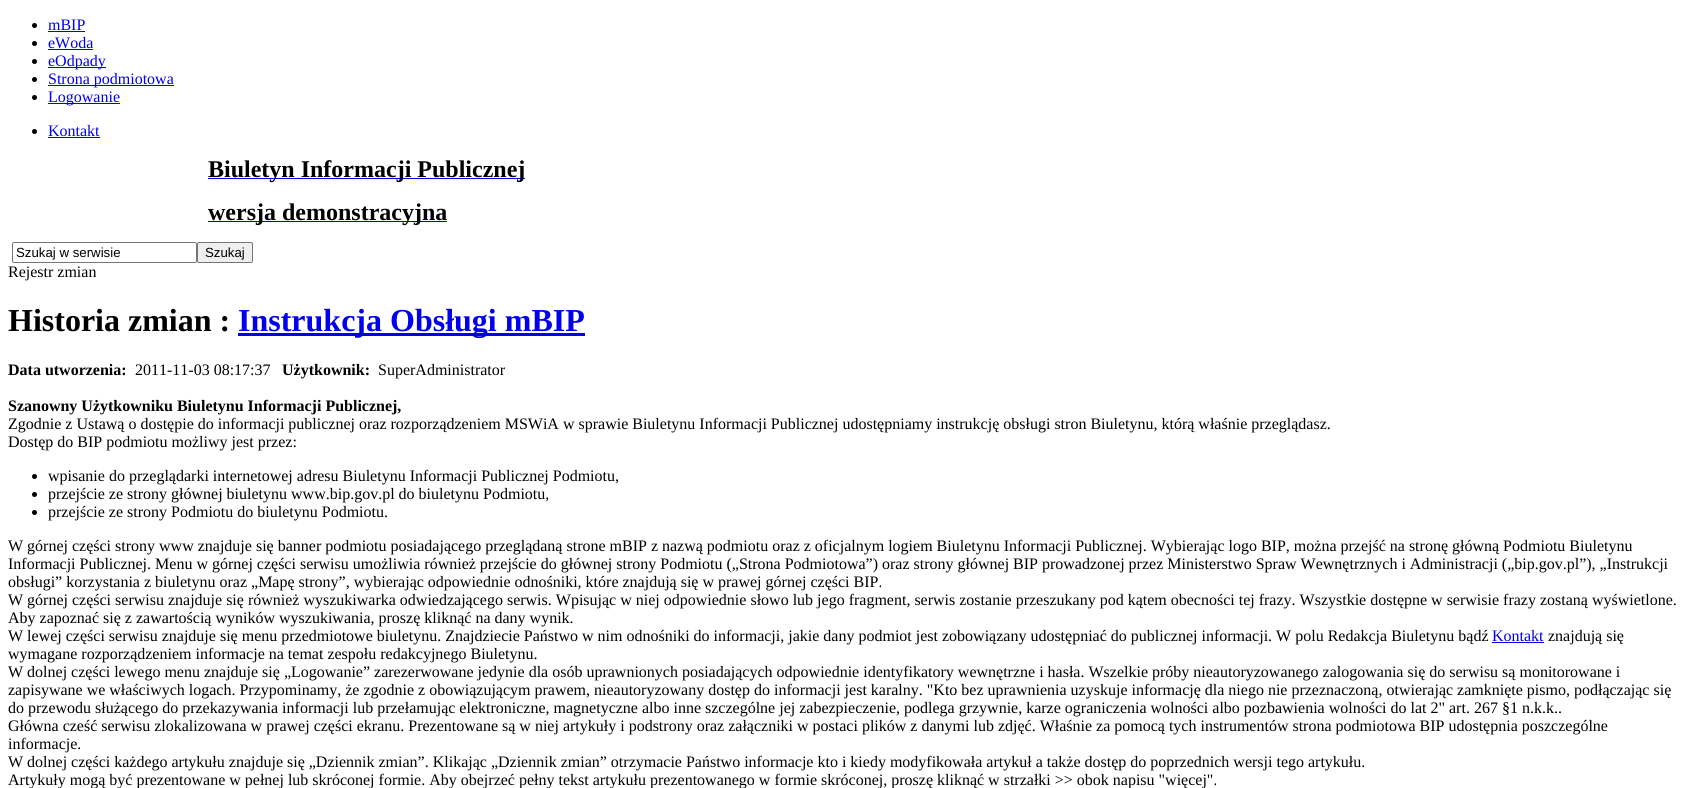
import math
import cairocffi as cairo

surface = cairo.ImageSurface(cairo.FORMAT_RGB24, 1692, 788)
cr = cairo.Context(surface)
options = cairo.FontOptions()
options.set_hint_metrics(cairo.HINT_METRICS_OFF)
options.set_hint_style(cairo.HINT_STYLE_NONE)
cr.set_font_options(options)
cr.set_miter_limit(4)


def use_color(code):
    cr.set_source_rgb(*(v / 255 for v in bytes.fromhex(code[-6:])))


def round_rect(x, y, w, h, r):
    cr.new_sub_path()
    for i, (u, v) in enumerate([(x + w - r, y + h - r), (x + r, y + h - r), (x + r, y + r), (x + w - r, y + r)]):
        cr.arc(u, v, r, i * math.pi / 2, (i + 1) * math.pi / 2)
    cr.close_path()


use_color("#ffffff")
cr.paint()
use_color("#000000")
cr.arc(34.5, 25.5, 2.5, 0, 2 * math.pi)
cr.fill()
cr.select_font_face("Liberation Serif")
cr.set_font_size(16)
use_color("#0000ee")
cr.move_to(48, 30)
cr.show_text("mBIP")
cr.rectangle(48, 31, 37, 1)
cr.fill()
use_color("#000000")
cr.arc(34.5, 43.5, 2.5, 0, 2 * math.pi)
cr.fill()
use_color("#0000ee")
cr.move_to(48, 48)
cr.show_text("eWoda")
cr.rectangle(48, 49, 45, 1)
cr.fill()
use_color("#000000")
cr.arc(34.5, 61.5, 2.5, 0, 2 * math.pi)
cr.fill()
use_color("#0000ee")
cr.rectangle(48, 67, 58, 1)
cr.fill()
cr.move_to(48, 66)
cr.show_text("eOdpady")
use_color("#000000")
cr.new_path()
cr.arc(34.5, 79.5, 2.5, 0, 2 * math.pi)
cr.fill()
use_color("#0000ee")
cr.rectangle(48, 85, 126, 1)
cr.fill()
cr.move_to(48, 84)
cr.show_text("Strona podmiotowa")
use_color("#000000")
cr.new_path()
cr.arc(34.5, 97.5, 2.5, 0, 2 * math.pi)
cr.fill()
use_color("#0000ee")
cr.rectangle(48, 103, 72, 1)
cr.fill()
cr.move_to(48, 102)
cr.show_text("Logowanie")
use_color("#000000")
cr.new_path()
cr.arc(34.5, 131.5, 2.5, 0, 2 * math.pi)
cr.fill()
use_color("#0000ee")
cr.move_to(48, 136)
cr.show_text("Kontakt")
cr.rectangle(48, 137, 52, 1)
cr.fill()
cr.rectangle(208, 178, 317, 1)
cr.fill()
cr.select_font_face("Liberation Serif", cairo.FONT_SLANT_NORMAL, cairo.FONT_WEIGHT_BOLD)
cr.set_font_size(24)
use_color("#000000")
cr.move_to(208, 177)
cr.show_text("Biuletyn Informacji Publicznej")
use_color("#0000ee")
cr.rectangle(208, 221, 239, 1)
cr.fill()
use_color("#000000")
cr.move_to(208, 220)
cr.show_text("wersja demonstracyjna")
round_rect(12.5, 242.5, 184, 20, 1.5)
use_color("#767676")
cr.set_line_width(1)
cr.stroke()
cr.select_font_face("Liberation Sans")
cr.set_font_size(13.25)
use_color("#000000")
cr.move_to(16, 257)
cr.show_text("Szukaj w serwisie")
use_color("#efefef")
round_rect(197.5, 242.5, 55, 20, 1.5)
cr.fill_preserve()
use_color("#767676")
cr.stroke()
use_color("#000000")
cr.move_to(205, 257)
cr.show_text("Szukaj")
cr.select_font_face("Liberation Serif")
cr.set_font_size(16)
cr.move_to(8, 277)
cr.show_text("Rejestr zmian")
cr.select_font_face("Liberation Serif", cairo.FONT_SLANT_NORMAL, cairo.FONT_WEIGHT_BOLD)
cr.set_font_size(32)
cr.move_to(8, 331)
cr.show_text("Historia zmian :")
use_color("#0000ee")
cr.rectangle(238, 333, 347, 3)
cr.fill()
cr.move_to(238, 331)
cr.show_text("Instrukcja Obsługi mBIP")
cr.set_font_size(16)
use_color("#000000")
cr.move_to(8, 375)
cr.show_text("Data utworzenia:")
cr.select_font_face("Liberation Serif")
cr.move_to(135, 375)
cr.show_text("2011-11-03 08:17:37")
cr.select_font_face("Liberation Serif", cairo.FONT_SLANT_NORMAL, cairo.FONT_WEIGHT_BOLD)
cr.move_to(282, 375)
cr.show_text("Użytkownik:")
cr.select_font_face("Liberation Serif")
cr.move_to(378, 375)
cr.show_text("SuperAdministrator")
cr.select_font_face("Liberation Serif", cairo.FONT_SLANT_NORMAL, cairo.FONT_WEIGHT_BOLD)
cr.move_to(8, 411)
cr.show_text("Szanowny Użytkowniku Biuletynu Informacji Publicznej,")
cr.select_font_face("Liberation Serif")
cr.move_to(8, 429)
cr.show_text("Zgodnie z Ustawą o dostępie do informacji publicznej oraz rozporządzeniem MSWiA w sprawie Biuletynu Informacji Publicznej udostępniamy instrukcję obsługi stron Biuletynu, którą właśnie przeglądasz.")
cr.move_to(8, 447)
cr.show_text("Dostęp do BIP podmiotu możliwy jest przez:")
cr.new_path()
cr.arc(34.5, 476.5, 2.5, 0, 2 * math.pi)
cr.fill()
cr.move_to(48, 481)
cr.show_text("wpisanie do przeglądarki internetowej adresu Biuletynu Informacji Publicznej Podmiotu,")
cr.new_path()
cr.arc(34.5, 494.5, 2.5, 0, 2 * math.pi)
cr.fill()
cr.move_to(48, 499)
cr.show_text("przejście ze strony głównej biuletynu www.bip.gov.pl do biuletynu Podmiotu,")
cr.new_path()
cr.arc(34.5, 512.5, 2.5, 0, 2 * math.pi)
cr.fill()
cr.move_to(48, 517)
cr.show_text("przejście ze strony Podmiotu do biuletynu Podmiotu.")
cr.move_to(8, 551)
cr.show_text("W górnej części strony www znajduje się banner podmiotu posiadającego przeglądaną strone mBIP z nazwą podmiotu oraz z oficjalnym logiem Biuletynu Informacji Publicznej. Wybierając logo BIP, można przejść na stronę główną Podmiotu Biuletynu")
cr.move_to(8, 569)
cr.show_text("Informacji Publicznej. Menu w górnej części serwisu umożliwia również przejście do głównej strony Podmiotu („Strona Podmiotowa”) oraz strony głównej BIP prowadzonej przez Ministerstwo Spraw Wewnętrznych i Administracji („bip.gov.pl”), „Instrukcji")
cr.move_to(8, 587)
cr.show_text("obsługi” korzystania z biuletynu oraz „Mapę strony”, wybierając odpowiednie odnośniki, które znajdują się w prawej górnej części BIP.")
cr.move_to(8, 605)
cr.show_text("W górnej części serwisu znajduje się również wyszukiwarka odwiedzającego serwis. Wpisując w niej odpowiednie słowo lub jego fragment, serwis zostanie przeszukany pod kątem obecności tej frazy. Wszystkie dostępne w serwisie frazy zostaną wyświetlone.")
cr.move_to(8, 623)
cr.show_text("Aby zapoznać się z zawartością wyników wyszukiwania, proszę kliknąć na dany wynik.")
cr.move_to(8, 641)
cr.show_text("W lewej części serwisu znajduje się menu przedmiotowe biuletynu. Znajdziecie Państwo w nim odnośniki do informacji, jakie dany podmiot jest zobowiązany udostępniać do publicznej informacji. W polu Redakcja Biuletynu bądź")
use_color("#0000ee")
cr.move_to(1492, 641)
cr.show_text("Kontakt")
cr.rectangle(1492, 642, 52, 1)
cr.fill()
use_color("#000000")
cr.move_to(1548, 641)
cr.show_text("znajdują się")
cr.move_to(8, 659)
cr.show_text("wymagane rozporządzeniem informacje na temat zespołu redakcyjnego Biuletynu.")
cr.move_to(8, 677)
cr.show_text("W dolnej części lewego menu znajduje się „Logowanie” zarezerwowane jedynie dla osób uprawnionych posiadających odpowiednie identyfikatory wewnętrzne i hasła. Wszelkie próby nieautoryzowanego zalogowania się do serwisu są monitorowane i")
cr.move_to(8, 695)
cr.show_text("zapisywane we właściwych logach. Przypominamy, że zgodnie z obowiązującym prawem, nieautoryzowany dostęp do informacji jest karalny. \"Kto bez uprawnienia uzyskuje informację dla niego nie przeznaczoną, otwierając zamknięte pismo, podłączając się")
cr.move_to(8, 713)
cr.show_text("do przewodu służącego do przekazywania informacji lub przełamując elektroniczne, magnetyczne albo inne szczególne jej zabezpieczenie, podlega grzywnie, karze ograniczenia wolności albo pozbawienia wolności do lat 2\" art. 267 §1 n.k.k..")
cr.move_to(8, 731)
cr.show_text("Główna cześć serwisu zlokalizowana w prawej części ekranu. Prezentowane są w niej artykuły i podstrony oraz załączniki w postaci plików z danymi lub zdjęć. Właśnie za pomocą tych instrumentów strona podmiotowa BIP udostępnia poszczególne")
cr.move_to(8, 749)
cr.show_text("informacje.")
cr.move_to(8, 767)
cr.show_text("W dolnej części każdego artykułu znajduje się „Dziennik zmian”. Klikając „Dziennik zmian” otrzymacie Państwo informacje kto i kiedy modyfikowała artykuł a także dostęp do poprzednich wersji tego artykułu.")
cr.move_to(8, 785)
cr.show_text("Artykuły mogą być prezentowane w pełnej lub skróconej formie. Aby obejrzeć pełny tekst artykułu prezentowanego w formie skróconej, proszę kliknąć w strzałki >> obok napisu \"więcej\".")
surface.write_to_png("result.png")
